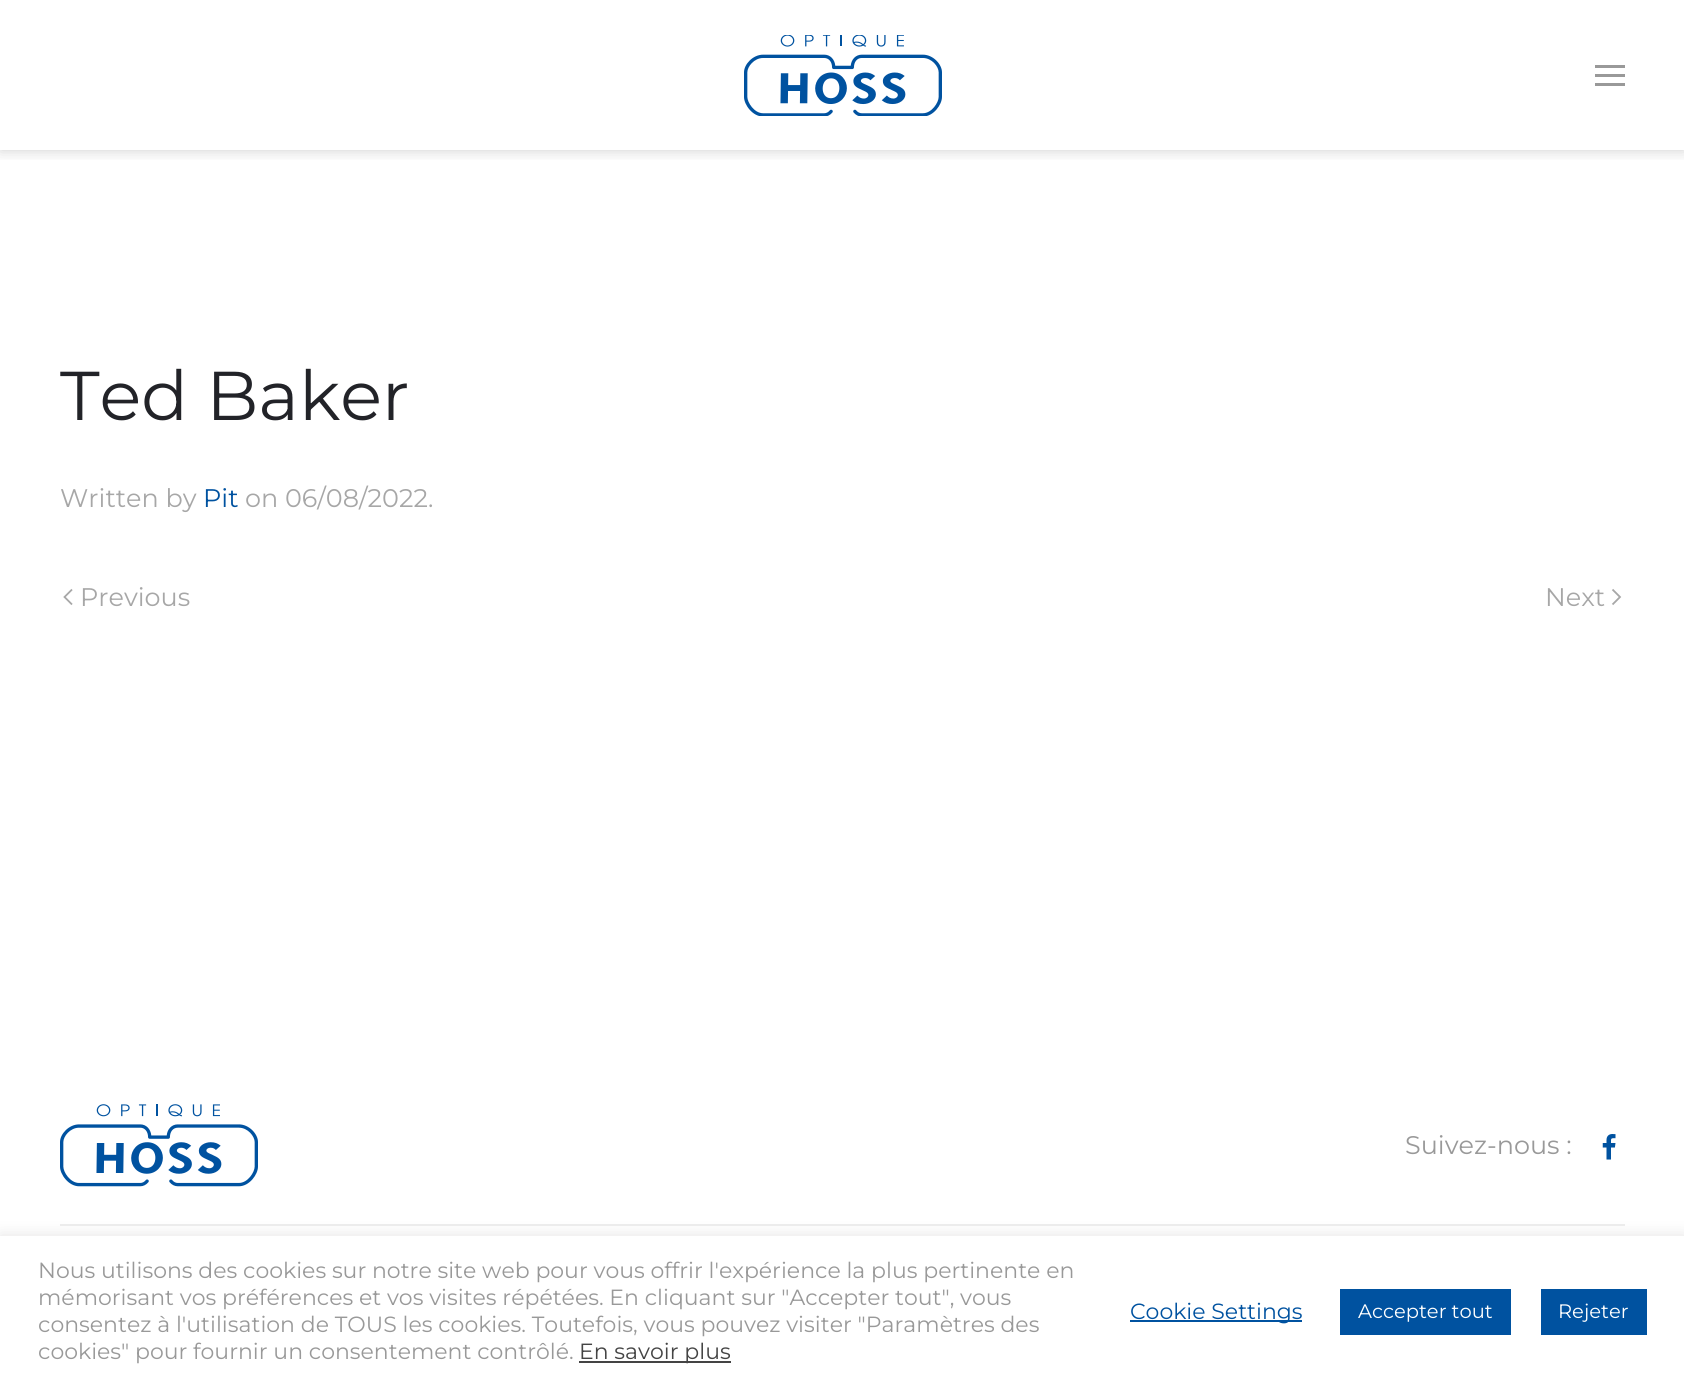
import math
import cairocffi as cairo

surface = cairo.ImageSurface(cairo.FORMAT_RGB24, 1684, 1385)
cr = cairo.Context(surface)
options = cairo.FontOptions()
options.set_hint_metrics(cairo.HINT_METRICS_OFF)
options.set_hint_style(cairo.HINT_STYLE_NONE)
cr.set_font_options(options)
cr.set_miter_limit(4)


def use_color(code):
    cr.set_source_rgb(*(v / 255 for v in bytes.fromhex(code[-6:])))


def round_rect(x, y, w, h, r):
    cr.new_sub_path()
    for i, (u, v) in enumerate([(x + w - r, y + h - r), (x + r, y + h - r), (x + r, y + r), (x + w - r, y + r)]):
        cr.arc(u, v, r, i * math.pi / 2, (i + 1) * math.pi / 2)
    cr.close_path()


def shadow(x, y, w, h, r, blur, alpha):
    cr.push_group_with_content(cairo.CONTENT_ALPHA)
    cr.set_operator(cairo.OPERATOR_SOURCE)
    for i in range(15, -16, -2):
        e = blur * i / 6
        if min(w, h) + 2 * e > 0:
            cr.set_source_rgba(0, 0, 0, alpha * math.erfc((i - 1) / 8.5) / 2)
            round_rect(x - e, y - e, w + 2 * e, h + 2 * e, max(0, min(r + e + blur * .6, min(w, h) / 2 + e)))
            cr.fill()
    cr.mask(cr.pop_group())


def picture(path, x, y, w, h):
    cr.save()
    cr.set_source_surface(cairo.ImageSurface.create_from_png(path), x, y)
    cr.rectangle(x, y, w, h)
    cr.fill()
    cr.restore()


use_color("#ffffff")
cr.paint()
cr.save()
cr.rectangle(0, 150, 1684, 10)
cr.clip()
use_color("#000000")
shadow(0, 0, 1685, 150, 0, 7.5, 0.2)
cr.restore()
picture("img1.png", 744, 35, 198, 81)
use_color("#999999")
cr.rectangle(1595, 65, 30, 3)
cr.fill()
cr.rectangle(1595, 74, 30, 3)
cr.fill()
cr.rectangle(1595, 83, 30, 3)
cr.fill()
cr.select_font_face("Montserrat Thin")
cr.set_font_size(69)
use_color("#222328")
cr.move_to(60, 420)
cr.show_text("Ted Baker")
cr.set_font_size(25.5)
use_color("#a7a7a7")
cr.move_to(60, 507)
cr.show_text("Written by")
use_color("#0052a0")
cr.move_to(203, 507)
cr.show_text("Pit")
use_color("#a7a7a7")
cr.move_to(245, 507)
cr.show_text("on 06/08/2022.")
cr.new_path()
cr.move_to(72, 589.5)
cr.line_to(64.5, 597)
cr.line_to(72, 604.5)
cr.set_line_width(1.8)
cr.stroke()
cr.move_to(80, 606)
cr.show_text("Previous")
cr.move_to(1545, 606)
cr.show_text("Next")
cr.new_path()
cr.move_to(1612.5, 589.5)
cr.line_to(1620, 597)
cr.line_to(1612.5, 604.5)
cr.stroke()
picture("img2.png", 60, 1104, 198, 83)
use_color("#999999")
cr.move_to(1405, 1154)
cr.show_text("Suivez-nous :")
picture("img3.png", 1602, 1134, 14, 26)
use_color("#eeeeee")
cr.rectangle(60, 1224, 1565, 2)
cr.fill()
use_color("#acabab")
shadow(0, 1235, 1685, 150, 0, 7.5, 0.3)
use_color("#ffffff")
cr.rectangle(0, 1236, 1684, 149)
cr.fill()
cr.set_font_size(22)
use_color("#999999")
cr.move_to(38, 1278)
cr.show_text("Nous utilisons des cookies sur notre site web pour vous offrir l'expérience la plus pertinente en")
cr.move_to(38, 1305)
cr.show_text("mémorisant vos préférences et vos visites répétées. En cliquant sur \"Accepter tout\", vous")
cr.move_to(38, 1332)
cr.show_text("consentez à l'utilisation de TOUS les cookies. Toutefois, vous pouvez visiter \"Paramètres des")
cr.move_to(38, 1359)
cr.show_text("cookies\" pour fournir un consentement contrôlé.")
use_color("#444444")
cr.rectangle(579, 1361, 152, 2)
cr.fill()
cr.move_to(579, 1359)
cr.show_text("En savoir plus")
use_color("#0052a0")
cr.rectangle(1130, 1320, 172, 2)
cr.fill()
cr.move_to(1130, 1319)
cr.show_text("Cookie Settings")
cr.rectangle(1340, 1289, 171, 46)
cr.fill()
cr.set_font_size(19.5)
use_color("#ffffff")
cr.move_to(1358, 1318)
cr.show_text("Accepter tout")
use_color("#0052a0")
cr.rectangle(1541, 1289, 106, 46)
cr.fill()
use_color("#ffffff")
cr.move_to(1558, 1318)
cr.show_text("Rejeter")
surface.write_to_png("result.png")
